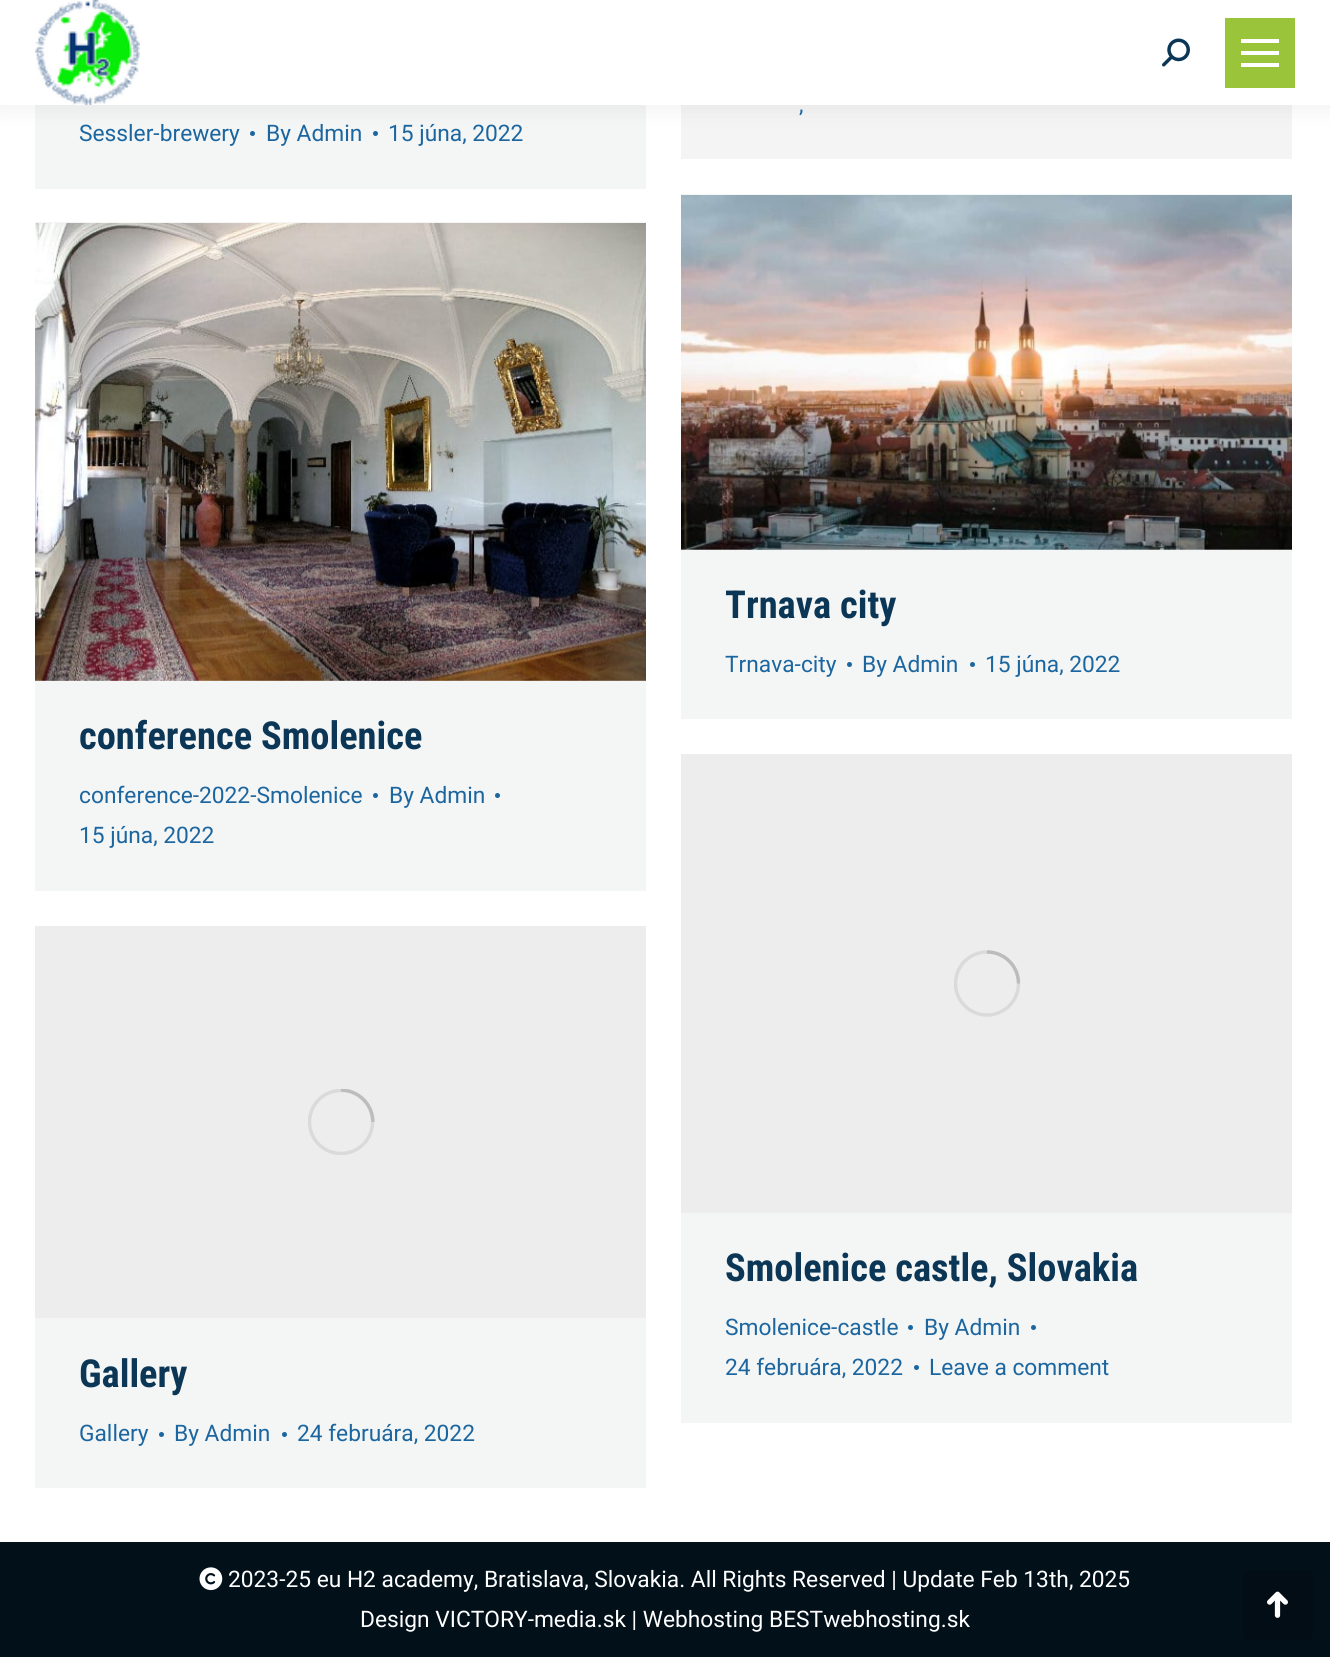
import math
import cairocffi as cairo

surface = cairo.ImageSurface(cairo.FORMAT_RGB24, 1330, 1657)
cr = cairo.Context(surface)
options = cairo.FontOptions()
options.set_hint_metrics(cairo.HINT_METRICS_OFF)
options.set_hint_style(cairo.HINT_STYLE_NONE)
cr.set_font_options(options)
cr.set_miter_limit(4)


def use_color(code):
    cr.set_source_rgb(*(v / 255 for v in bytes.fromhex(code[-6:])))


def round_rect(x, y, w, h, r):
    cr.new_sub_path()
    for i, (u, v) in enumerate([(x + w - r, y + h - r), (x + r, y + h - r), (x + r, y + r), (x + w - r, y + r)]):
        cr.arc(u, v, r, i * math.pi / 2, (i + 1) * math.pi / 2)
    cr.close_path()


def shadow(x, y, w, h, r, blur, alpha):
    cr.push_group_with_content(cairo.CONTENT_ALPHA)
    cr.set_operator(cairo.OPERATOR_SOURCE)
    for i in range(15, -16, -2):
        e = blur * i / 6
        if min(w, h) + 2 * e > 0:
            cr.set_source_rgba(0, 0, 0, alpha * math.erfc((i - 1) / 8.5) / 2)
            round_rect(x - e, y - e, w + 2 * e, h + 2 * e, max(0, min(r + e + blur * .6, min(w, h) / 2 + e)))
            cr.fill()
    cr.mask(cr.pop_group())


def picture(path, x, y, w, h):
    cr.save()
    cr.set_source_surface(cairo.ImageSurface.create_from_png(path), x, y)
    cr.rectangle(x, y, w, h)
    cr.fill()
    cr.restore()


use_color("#ffffff")
cr.paint()
use_color("#f4f4f5")
cr.rectangle(681, 105, 611, 54)
cr.fill()
use_color("#f4f5f5")
cr.rectangle(35, 105, 611, 84)
cr.fill()
use_color("#1c66a0")
cr.arc(252.5, 133.5, 2.5, 0, 2 * math.pi)
cr.fill()
cr.arc(375.5, 133.5, 2.5, 0, 2 * math.pi)
cr.fill()
use_color("#000000")
shadow(-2, -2, 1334, 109, 0, 13, 0.07)
use_color("#ffffff")
cr.rectangle(0, 0, 1330, 105)
cr.fill()
picture("img1.png", 35, 0, 105, 105)
picture("img2.png", 1162, 38, 28, 29)
use_color("#9ac43a")
cr.rectangle(1225, 18, 70, 70)
cr.fill()
use_color("#ffffff")
cr.rectangle(1241, 39, 38, 4)
cr.fill()
cr.rectangle(1241, 51, 38, 4)
cr.fill()
cr.rectangle(1241, 63, 38, 4)
cr.fill()
cr.select_font_face("Roboto")
cr.set_font_size(22.75)
use_color("#1c66a0")
cr.move_to(799, 112)
cr.show_text(",")
cr.move_to(79, 141)
cr.show_text("Sessler-brewery")
cr.move_to(266, 141)
cr.show_text("By Admin")
cr.move_to(388, 141)
cr.show_text("15 júna, 2022")
use_color("#f4f5f5")
cr.rectangle(681, 194, 611, 525)
cr.fill()
picture("img3.png", 681, 195, 611, 355)
cr.select_font_face("Roboto Condensed", cairo.FONT_SLANT_NORMAL, cairo.FONT_WEIGHT_BOLD)
cr.set_font_size(38.5)
use_color("#0b3655")
cr.move_to(725, 618)
cr.show_text("Trnava city")
cr.select_font_face("Roboto")
cr.set_font_size(22.75)
use_color("#1c66a0")
cr.move_to(725, 672)
cr.show_text("Trnava-city")
cr.new_path()
cr.arc(849.5, 664.5, 2.5, 0, 2 * math.pi)
cr.fill()
cr.move_to(862, 672)
cr.show_text("By Admin")
cr.new_path()
cr.arc(972.5, 664.5, 2.5, 0, 2 * math.pi)
cr.fill()
cr.move_to(985, 672)
cr.show_text("15 júna, 2022")
use_color("#f4f5f5")
cr.rectangle(35, 222, 611, 669)
cr.fill()
picture("img4.png", 35, 223, 611, 458)
cr.select_font_face("Roboto Condensed", cairo.FONT_SLANT_NORMAL, cairo.FONT_WEIGHT_BOLD)
cr.set_font_size(38.5)
use_color("#0b3655")
cr.move_to(79, 749)
cr.show_text("conference Smolenice")
cr.select_font_face("Roboto")
cr.set_font_size(22.75)
use_color("#1c66a0")
cr.move_to(79, 803)
cr.show_text("conference-2022-Smolenice")
cr.new_path()
cr.arc(375.5, 795.5, 2.5, 0, 2 * math.pi)
cr.fill()
cr.move_to(389, 803)
cr.show_text("By Admin")
cr.new_path()
cr.arc(497.5, 795.5, 2.5, 0, 2 * math.pi)
cr.fill()
cr.move_to(79, 843)
cr.show_text("15 júna, 2022")
use_color("#f4f5f5")
cr.rectangle(681, 1213, 611, 210)
cr.fill()
use_color("#ededed")
cr.rectangle(681, 754, 611, 459)
cr.fill()
cr.save()
cr.rectangle(954, 950, 66, 67)
cr.clip()
cr.arc(987, 983.5, 31.5, 0, 2 * math.pi)
use_color("#dadada")
cr.set_line_width(3.5)
cr.stroke()
cr.restore()
cr.new_path()
cr.move_to(1018.5, 983.5)
cr.curve_to(1018.5, 966, 1004.5, 952, 987, 952)
cr.set_source_rgba(0.4, 0.4, 0.4, 0.25)
cr.set_line_width(3.5)
cr.stroke()
cr.select_font_face("Roboto Condensed", cairo.FONT_SLANT_NORMAL, cairo.FONT_WEIGHT_BOLD)
cr.set_font_size(38.5)
use_color("#0b3655")
cr.move_to(725, 1281)
cr.show_text("Smolenice castle, Slovakia")
cr.select_font_face("Roboto")
cr.set_font_size(22.75)
use_color("#1c66a0")
cr.move_to(725, 1335)
cr.show_text("Smolenice-castle")
cr.new_path()
cr.arc(910.5, 1327.5, 2.5, 0, 2 * math.pi)
cr.fill()
cr.move_to(924, 1335)
cr.show_text("By Admin")
cr.new_path()
cr.arc(1033.5, 1327.5, 2.5, 0, 2 * math.pi)
cr.fill()
cr.move_to(725, 1375)
cr.show_text("24 februára, 2022")
cr.new_path()
cr.arc(916.5, 1367.5, 2.5, 0, 2 * math.pi)
cr.fill()
cr.move_to(929, 1375)
cr.show_text("Leave a comment")
use_color("#f4f5f5")
cr.rectangle(35, 1318, 611, 170)
cr.fill()
use_color("#ededed")
cr.rectangle(35, 926, 611, 392)
cr.fill()
cr.save()
cr.rectangle(308, 1089, 67, 66)
cr.clip()
cr.arc(341, 1122, 31.5, 0, 2 * math.pi)
use_color("#dadada")
cr.stroke()
cr.new_path()
cr.move_to(373, 1122)
cr.curve_to(373, 1104.5, 358.5, 1090, 341, 1090)
cr.set_source_rgba(0.4, 0.4, 0.4, 0.25)
cr.stroke()
cr.restore()
cr.select_font_face("Roboto Condensed", cairo.FONT_SLANT_NORMAL, cairo.FONT_WEIGHT_BOLD)
cr.set_font_size(38.5)
use_color("#0b3655")
cr.move_to(79, 1387)
cr.show_text("Gallery")
cr.select_font_face("Roboto")
cr.set_font_size(22.75)
use_color("#1c66a0")
cr.move_to(79, 1441)
cr.show_text("Gallery")
cr.new_path()
cr.arc(161.5, 1434.5, 2.5, 0, 2 * math.pi)
cr.fill()
cr.move_to(174, 1441)
cr.show_text("By Admin")
cr.new_path()
cr.arc(284.5, 1434.5, 2.5, 0, 2 * math.pi)
cr.fill()
cr.move_to(297, 1441)
cr.show_text("24 februára, 2022")
use_color("#02101a")
cr.rectangle(0, 1542, 1330, 115)
cr.fill()
picture("img5.png", 199, 1567, 24, 24)
use_color("#ffffff")
cr.move_to(228, 1587)
cr.show_text("2023-25 eu H2 academy, Bratislava, Slovakia. All Rights Reserved | Update Feb 13th, 2025")
cr.move_to(360, 1627)
cr.show_text("Design VICTORY-media.sk | Webhosting BESTwebhosting.sk")
use_color("#020d15")
round_rect(1243, 1570, 70, 70, 5)
cr.fill()
picture("img6.png", 1267, 1591, 21, 27)
surface.write_to_png("result.png")
